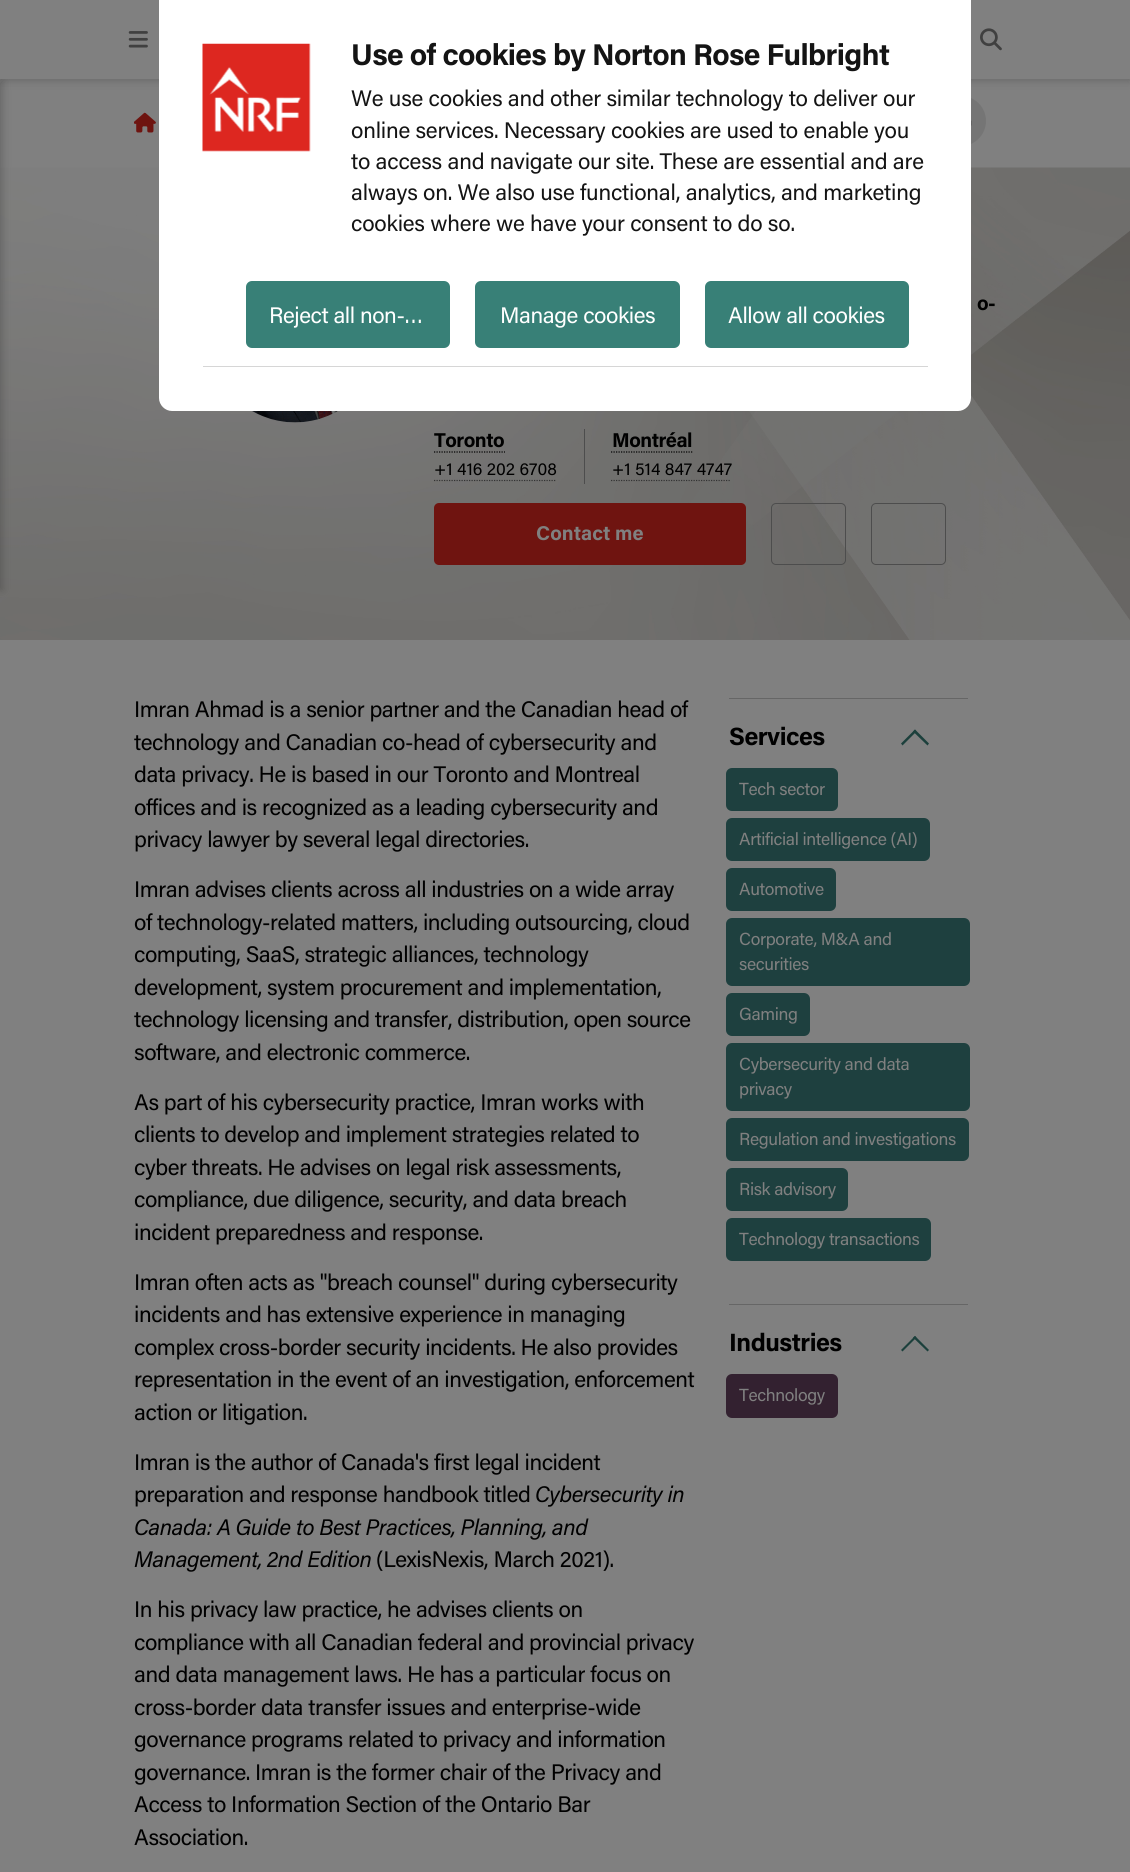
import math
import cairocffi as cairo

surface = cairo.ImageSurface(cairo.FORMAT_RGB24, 1130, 1872)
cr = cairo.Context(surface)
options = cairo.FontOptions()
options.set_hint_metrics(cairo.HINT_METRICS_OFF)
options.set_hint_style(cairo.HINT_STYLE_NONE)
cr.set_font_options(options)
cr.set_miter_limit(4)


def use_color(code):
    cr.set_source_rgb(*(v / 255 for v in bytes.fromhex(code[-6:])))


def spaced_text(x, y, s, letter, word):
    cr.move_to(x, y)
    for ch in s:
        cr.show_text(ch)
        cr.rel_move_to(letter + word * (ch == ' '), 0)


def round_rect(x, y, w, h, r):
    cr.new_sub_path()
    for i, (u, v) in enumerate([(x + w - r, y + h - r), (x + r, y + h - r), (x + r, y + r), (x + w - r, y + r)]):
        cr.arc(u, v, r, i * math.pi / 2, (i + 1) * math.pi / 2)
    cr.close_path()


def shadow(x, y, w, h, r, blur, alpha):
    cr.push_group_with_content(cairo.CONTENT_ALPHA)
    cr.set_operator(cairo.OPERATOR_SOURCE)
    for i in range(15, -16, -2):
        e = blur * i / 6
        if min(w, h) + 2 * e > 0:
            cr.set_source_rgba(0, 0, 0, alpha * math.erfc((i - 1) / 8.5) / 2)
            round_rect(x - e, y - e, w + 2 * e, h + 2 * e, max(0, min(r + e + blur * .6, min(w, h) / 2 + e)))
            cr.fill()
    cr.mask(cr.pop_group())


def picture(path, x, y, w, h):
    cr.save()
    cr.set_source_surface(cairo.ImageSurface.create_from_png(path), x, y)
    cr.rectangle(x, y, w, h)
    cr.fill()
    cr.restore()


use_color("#808080")
cr.paint()
use_color("#333333")
shadow(0, 3, 1130, 78, 0, 4, 0.3)
picture("img6.png", 0, 167, 1130, 473)
shadow(-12, 81, 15, 509, 0, 4, 0.3)
use_color("#808080")
cr.rectangle(0, 0, 1130, 79)
cr.fill()
picture("img1.png", 128, 31, 20, 17)
picture("img2.png", 980, 28, 22, 23)
use_color("#757575")
cr.arc(961, 121, 25, 0, 2 * math.pi)
cr.fill()
cr.arc(295, 338, 85, 0, 2 * math.pi)
cr.fill()
use_color("#ffffff")
cr.new_path()
cr.move_to(159, 0)
cr.line_to(971, 0)
cr.line_to(971, 398)
cr.curve_to(971, 405, 965, 411, 958, 411)
cr.line_to(172, 411)
cr.curve_to(165, 411, 159, 405, 159, 398)
cr.close_path()
cr.fill()
picture("img3.png", 202, 43, 109, 109)
cr.select_font_face("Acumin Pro", cairo.FONT_SLANT_NORMAL, cairo.FONT_WEIGHT_BOLD)
cr.set_font_size(30)
use_color("#141414")
spaced_text(351, 65, "Use of cookies by Norton Rose Fulbright", -0.6, 0)
cr.select_font_face("Acumin Pro")
cr.set_font_size(22.5)
spaced_text(351, 106, "We use cookies and other similar technology to deliver our", -0.22, 0)
spaced_text(351, 138, "online services. Necessary cookies are used to enable you", -0.22, 0)
spaced_text(351, 169, "to access and navigate our site. These are essential and are", -0.22, 0)
spaced_text(351, 200, "always on. We also use functional, analytics, and marketing", -0.22, 0)
spaced_text(351, 231, "cookies where we have your consent to do so.", -0.22, 0)
use_color("#d6d6d6")
cr.rectangle(203, 366, 725, 1)
cr.fill()
use_color("#388077")
round_rect(246, 281, 204, 67, 6)
cr.fill()
use_color("#ffffff")
spaced_text(269, 323, "Reject all non-…", -0.45, 0)
use_color("#388077")
round_rect(475, 281, 205, 67, 6)
cr.fill()
use_color("#ffffff")
spaced_text(500, 323, "Manage cookies", -0.45, 0)
use_color("#388077")
round_rect(705, 281, 204, 67, 6)
cr.fill()
use_color("#ffffff")
spaced_text(728, 323, "Allow all cookies", -0.45, 0)
picture("img4.png", 134, 112, 22, 21)
picture("img5.png", 971, 120, 1, 6)
picture("img7.png", 252, 411, 86, 12)
cr.select_font_face("Acumin Pro", cairo.FONT_SLANT_NORMAL, cairo.FONT_WEIGHT_BOLD)
cr.set_font_size(20)
use_color("#000000")
spaced_text(977, 310, "o-", -0.6, 0)
use_color("#4d4d4d")
cr.rectangle(584, 429, 1, 55)
cr.fill()
cr.new_path()
cr.move_to(434, 452)
cr.line_to(505, 452)
use_color("#000000")
cr.set_line_width(1.2)
cr.set_dash([1.25, 1.25])
cr.stroke()
spaced_text(434, 447, "Toronto", -0.5, 0)
cr.select_font_face("Acumin Pro")
cr.set_font_size(17.5)
cr.move_to(434, 475)
cr.show_text("+1 416 202 6708")
cr.new_path()
cr.move_to(434, 480.5)
cr.line_to(556, 480.5)
use_color("#333333")
cr.stroke()
cr.new_path()
cr.move_to(611, 452)
cr.line_to(692.5, 452)
use_color("#000000")
cr.stroke()
cr.select_font_face("Acumin Pro", cairo.FONT_SLANT_NORMAL, cairo.FONT_WEIGHT_BOLD)
cr.set_font_size(20)
spaced_text(612, 447, "Montréal", -0.5, 0)
cr.select_font_face("Acumin Pro")
cr.set_font_size(17.5)
cr.move_to(612, 475)
cr.show_text("+1 514 847 4747")
cr.new_path()
cr.move_to(611, 480.5)
cr.line_to(731, 480.5)
use_color("#333333")
cr.stroke()
use_color("#6f1410")
round_rect(434, 503, 312, 62, 5)
cr.fill()
cr.select_font_face("Acumin Pro", cairo.FONT_SLANT_NORMAL, cairo.FONT_WEIGHT_BOLD)
cr.set_font_size(20)
use_color("#808080")
cr.move_to(536, 540)
cr.show_text("Contact me")
round_rect(771.5, 503.5, 74, 61, 4.5)
use_color("#4d4d4d")
cr.set_line_width(1)
cr.set_dash([])
cr.stroke()
round_rect(871.5, 503.5, 74, 61, 4.5)
cr.stroke()
cr.select_font_face("Acumin Pro")
cr.set_font_size(22.5)
use_color("#000000")
spaced_text(134, 717, "Imran Ahmad is a senior partner and the Canadian head of", -0.45, 0)
spaced_text(134, 750, "technology and Canadian co-head of cybersecurity and", -0.45, 0)
spaced_text(134, 782, "data privacy. He is based in our Toronto and Montreal", -0.45, 0)
spaced_text(134, 815, "offices and is recognized as a leading cybersecurity and", -0.45, 0)
spaced_text(134, 847, "privacy lawyer by several legal directories.", -0.45, 0)
spaced_text(134, 897, "Imran advises clients across all industries on a wide array", -0.45, 0)
spaced_text(134, 930, "of technology-related matters, including outsourcing, cloud", -0.45, 0)
spaced_text(134, 962, "computing, SaaS, strategic alliances, technology", -0.45, 0)
spaced_text(134, 995, "development, system procurement and implementation,", -0.45, 0)
spaced_text(134, 1027, "technology licensing and transfer, distribution, open source", -0.45, 0)
spaced_text(134, 1060, "software, and electronic commerce.", -0.45, 0)
spaced_text(134, 1110, "As part of his cybersecurity practice, Imran works with", -0.45, 0)
spaced_text(134, 1142, "clients to develop and implement strategies related to", -0.45, 0)
spaced_text(134, 1175, "cyber threats. He advises on legal risk assessments,", -0.45, 0)
spaced_text(134, 1207, "compliance, due diligence, security, and data breach", -0.45, 0)
spaced_text(134, 1240, "incident preparedness and response.", -0.45, 0)
spaced_text(134, 1290, "Imran often acts as \"breach counsel\" during cybersecurity", -0.45, 0)
spaced_text(134, 1322, "incidents and has extensive experience in managing", -0.45, 0)
spaced_text(134, 1355, "complex cross-border security incidents. He also provides", -0.45, 0)
spaced_text(134, 1387, "representation in the event of an investigation, enforcement", -0.45, 0)
spaced_text(134, 1420, "action or litigation.", -0.45, 0)
spaced_text(134, 1470, "Imran is the author of Canada's first legal incident", -0.45, 0)
spaced_text(134, 1502, "preparation and response handbook titled", -0.45, 0)
cr.select_font_face("Acumin Pro", cairo.FONT_SLANT_ITALIC)
spaced_text(535, 1502, "Cybersecurity in", -0.45, 0)
spaced_text(134, 1535, "Canada: A Guide to Best Practices, Planning, and", -0.45, 0)
spaced_text(134, 1567, "Management, 2nd Edition", -0.45, 0)
cr.select_font_face("Acumin Pro")
spaced_text(376, 1567, "(LexisNexis, March 2021).", -0.45, 0)
spaced_text(134, 1617, "In his privacy law practice, he advises clients on", -0.45, 0)
spaced_text(134, 1650, "compliance with all Canadian federal and provincial privacy", -0.45, 0)
spaced_text(134, 1682, "and data management laws. He has a particular focus on", -0.45, 0)
spaced_text(134, 1715, "cross-border data transfer issues and enterprise-wide", -0.45, 0)
spaced_text(134, 1747, "governance programs related to privacy and information", -0.45, 0)
spaced_text(134, 1780, "governance. Imran is the former chair of the Privacy and", -0.45, 0)
spaced_text(134, 1812, "Access to Information Section of the Ontario Bar", -0.45, 0)
spaced_text(134, 1845, "Association.", -0.45, 0)
use_color("#666666")
cr.rectangle(729, 698, 239, 1)
cr.fill()
cr.select_font_face("Acumin Pro", cairo.FONT_SLANT_NORMAL, cairo.FONT_WEIGHT_BOLD)
cr.set_font_size(25)
use_color("#000000")
spaced_text(729, 745, "Services", -0.5, 0)
use_color("#1c403c")
cr.new_path()
cr.move_to(916.5, 731.5)
cr.line_to(902.5, 745.5)
cr.line_to(901, 743.5)
cr.line_to(915, 729.5)
cr.close_path()
cr.fill()
cr.new_path()
cr.move_to(929, 743.5)
cr.line_to(927.5, 745.5)
cr.line_to(913, 731.5)
cr.line_to(915, 729.5)
cr.close_path()
cr.fill()
use_color("#1e403f")
round_rect(726, 768, 112, 43, 6)
cr.fill()
cr.select_font_face("Acumin Pro")
cr.set_font_size(17.5)
use_color("#808080")
spaced_text(739, 795, "Tech sector", -0.35, 0)
use_color("#1e403f")
round_rect(726, 818, 204, 43, 6)
cr.fill()
use_color("#808080")
spaced_text(739, 845, "Artificial intelligence (AI)", -0.35, 0)
use_color("#1e403f")
round_rect(726, 868, 110, 43, 6)
cr.fill()
use_color("#808080")
spaced_text(739, 895, "Automotive", -0.35, 0)
use_color("#1e403f")
round_rect(726, 918, 244, 68, 6)
cr.fill()
use_color("#808080")
spaced_text(739, 945, "Corporate, M&A and", -0.35, 0)
spaced_text(739, 970, "securities", -0.35, 0)
use_color("#1e403f")
round_rect(726, 993, 84, 43, 6)
cr.fill()
use_color("#808080")
spaced_text(739, 1020, "Gaming", -0.35, 0)
use_color("#1e403f")
round_rect(726, 1043, 244, 68, 6)
cr.fill()
use_color("#808080")
spaced_text(739, 1070, "Cybersecurity and data", -0.35, 0)
spaced_text(739, 1095, "privacy", -0.35, 0)
use_color("#1e403f")
round_rect(726, 1118, 243, 43, 6)
cr.fill()
use_color("#808080")
spaced_text(739, 1145, "Regulation and investigations", -0.35, 0)
use_color("#1e403f")
round_rect(726, 1168, 122, 43, 6)
cr.fill()
use_color("#808080")
spaced_text(739, 1195, "Risk advisory", -0.35, 0)
use_color("#1e403f")
round_rect(726, 1218, 205, 43, 6)
cr.fill()
use_color("#808080")
spaced_text(739, 1245, "Technology transactions", -0.35, 0)
use_color("#666666")
cr.rectangle(729, 1304, 239, 1)
cr.fill()
cr.select_font_face("Acumin Pro", cairo.FONT_SLANT_NORMAL, cairo.FONT_WEIGHT_BOLD)
cr.set_font_size(25)
use_color("#000000")
spaced_text(729, 1351, "Industries", -0.5, 0)
use_color("#1c403c")
cr.new_path()
cr.move_to(916.5, 1337.5)
cr.line_to(902.5, 1351.5)
cr.line_to(901, 1350)
cr.line_to(915, 1336)
cr.close_path()
cr.fill()
cr.new_path()
cr.move_to(929, 1350)
cr.line_to(927.5, 1351.5)
cr.line_to(913, 1337.5)
cr.line_to(915, 1336)
cr.close_path()
cr.fill()
use_color("#332130")
round_rect(726, 1374, 112, 44, 6)
cr.fill()
cr.select_font_face("Acumin Pro")
cr.set_font_size(17.5)
use_color("#808080")
spaced_text(739, 1401, "Technology", -0.35, 0)
surface.write_to_png("result.png")
